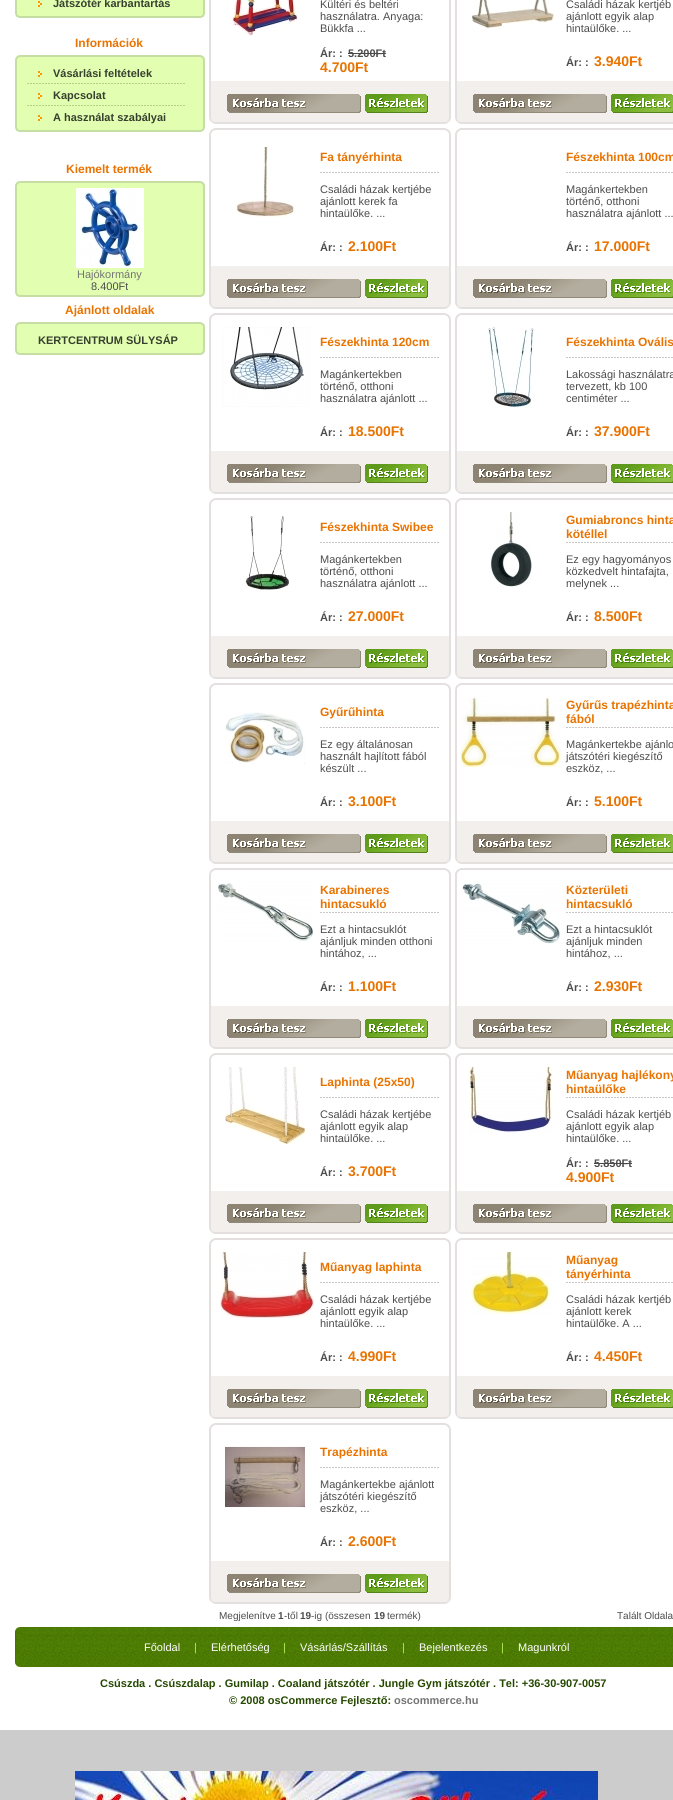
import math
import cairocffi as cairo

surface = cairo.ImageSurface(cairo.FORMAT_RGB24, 673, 1800)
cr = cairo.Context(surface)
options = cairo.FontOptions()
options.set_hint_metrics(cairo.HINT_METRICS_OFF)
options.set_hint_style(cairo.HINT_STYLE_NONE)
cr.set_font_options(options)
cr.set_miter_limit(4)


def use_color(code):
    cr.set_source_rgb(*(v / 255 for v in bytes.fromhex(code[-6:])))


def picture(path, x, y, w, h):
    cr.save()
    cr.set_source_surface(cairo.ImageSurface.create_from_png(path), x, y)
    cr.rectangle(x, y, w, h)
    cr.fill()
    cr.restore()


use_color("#cccccc")
cr.paint()
use_color("#ffffff")
cr.rectangle(0, 0, 673, 1730)
cr.fill()
use_color("#e2ffb1")
cr.rectangle(17, 0, 186, 13)
cr.fill()
use_color("#c6dda4")
cr.rectangle(203, 0, 2, 13)
cr.fill()
cr.rectangle(15, 0, 2, 13)
cr.fill()
picture("img1.png", 38, 1, 4, 6)
cr.select_font_face("Liberation Sans", cairo.FONT_SLANT_NORMAL, cairo.FONT_WEIGHT_BOLD)
cr.set_font_size(11)
use_color("#373f2f")
cr.move_to(53, 7)
cr.show_text("Játszótér karbantartás")
picture("img2.png", 15, 13, 190, 5)
cr.set_font_size(12)
use_color("#e97300")
cr.move_to(75, 47)
cr.show_text("Információk")
picture("img3.png", 15, 55, 190, 7)
use_color("#e2ffb1")
cr.rectangle(17, 62, 186, 65)
cr.fill()
use_color("#c6dda4")
cr.rectangle(203, 62, 2, 65)
cr.fill()
cr.rectangle(15, 62, 2, 65)
cr.fill()
picture("img1.png", 38, 71, 4, 6)
cr.set_font_size(11)
use_color("#373f2f")
cr.move_to(53, 77)
cr.show_text("Vásárlási feltételek")
picture("img4.png", 27, 83, 158, 1)
picture("img1.png", 38, 93, 4, 6)
cr.move_to(53, 99)
cr.show_text("Kapcsolat")
picture("img4.png", 27, 105, 158, 1)
picture("img1.png", 38, 115, 4, 6)
cr.move_to(53, 121)
cr.show_text("A használat szabályai")
picture("img2.png", 15, 127, 190, 5)
cr.set_font_size(12)
use_color("#e97300")
cr.move_to(66, 173)
cr.show_text("Kiemelt termék")
picture("img3.png", 15, 181, 190, 7)
use_color("#e2ffb1")
cr.rectangle(17, 188, 186, 104)
cr.fill()
use_color("#c6dda4")
cr.rectangle(203, 188, 2, 104)
cr.fill()
cr.rectangle(15, 188, 2, 104)
cr.fill()
picture("img5.png", 76, 188, 68, 80)
cr.select_font_face("Liberation Sans")
cr.set_font_size(11)
use_color("#747474")
cr.move_to(77, 278)
cr.show_text("Hajókormány")
use_color("#4c4c4c")
cr.move_to(91, 290)
cr.show_text("8.400Ft")
picture("img2.png", 15, 292, 190, 5)
cr.select_font_face("Liberation Sans", cairo.FONT_SLANT_NORMAL, cairo.FONT_WEIGHT_BOLD)
cr.set_font_size(12)
use_color("#e97300")
cr.move_to(65, 314)
cr.show_text("Ajánlott oldalak")
picture("img3.png", 15, 322, 190, 7)
use_color("#e2ffb1")
cr.rectangle(17, 329, 186, 21)
cr.fill()
use_color("#c6dda4")
cr.rectangle(203, 329, 2, 21)
cr.fill()
cr.rectangle(15, 329, 2, 21)
cr.fill()
cr.set_font_size(11)
use_color("#373f2f")
cr.move_to(38, 344)
cr.show_text("KERTCENTRUM SÜLYSÁP")
picture("img2.png", 15, 350, 190, 5)
use_color("#e3e0df")
cr.rectangle(449, 0, 2, 117)
cr.fill()
cr.rectangle(209, 0, 2, 117)
cr.fill()
picture("img6.png", 231, 0, 67, 35)
cr.select_font_face("Liberation Sans")
use_color("#4c4c4c")
cr.move_to(320, 8)
cr.show_text("Kültéri és beltéri")
cr.move_to(320, 20)
cr.show_text("használatra. Anyaga:")
cr.move_to(320, 32)
cr.show_text("Bükkfa ...")
cr.select_font_face("Liberation Sans", cairo.FONT_SLANT_NORMAL, cairo.FONT_WEIGHT_BOLD)
cr.move_to(320, 57)
cr.show_text("Ár: :")
cr.move_to(348, 57)
cr.show_text("5.200Ft")
use_color("#494949")
cr.rectangle(348, 53, 38, 1)
cr.fill()
cr.set_font_size(14)
use_color("#e97300")
cr.move_to(320, 72)
cr.show_text("4.700Ft")
use_color("#f2efed")
cr.rectangle(211, 81, 238, 36)
cr.fill()
picture("img7.png", 227, 94, 134, 19)
picture("img8.png", 365, 94, 63, 19)
picture("img9.png", 209, 117, 242, 7)
use_color("#e3e0df")
cr.rectangle(455, 0, 2, 117)
cr.fill()
picture("img10.png", 471, 0, 84, 29)
cr.select_font_face("Liberation Sans")
cr.set_font_size(11)
use_color("#4c4c4c")
cr.move_to(566, 8)
cr.show_text("Családi házak kertjéb")
cr.move_to(566, 20)
cr.show_text("ajánlott egyik alap")
cr.move_to(566, 32)
cr.show_text("hintaülőke. ...")
cr.select_font_face("Liberation Sans", cairo.FONT_SLANT_NORMAL, cairo.FONT_WEIGHT_BOLD)
cr.move_to(566, 66)
cr.show_text("Ár: :")
cr.set_font_size(14)
use_color("#e97300")
cr.move_to(594, 66)
cr.show_text("3.940Ft")
use_color("#f2efed")
cr.rectangle(457, 81, 216, 36)
cr.fill()
picture("img7.png", 473, 94, 134, 19)
picture("img11.png", 611, 94, 62, 19)
picture("img12.png", 455, 117, 218, 7)
picture("img13.png", 209, 128, 242, 8)
use_color("#e3e0df")
cr.rectangle(449, 136, 2, 166)
cr.fill()
cr.rectangle(209, 136, 2, 166)
cr.fill()
picture("img14.png", 235, 145, 60, 73)
cr.set_font_size(12)
use_color("#e97300")
cr.move_to(320, 161)
cr.show_text("Fa tányérhinta")
picture("img15.png", 320, 172, 119, 1)
cr.select_font_face("Liberation Sans")
cr.set_font_size(11)
use_color("#4c4c4c")
cr.move_to(320, 193)
cr.show_text("Családi házak kertjébe")
cr.move_to(320, 205)
cr.show_text("ajánlott kerek fa")
cr.move_to(320, 217)
cr.show_text("hintaülőke. ...")
cr.select_font_face("Liberation Sans", cairo.FONT_SLANT_NORMAL, cairo.FONT_WEIGHT_BOLD)
cr.move_to(320, 251)
cr.show_text("Ár: :")
cr.set_font_size(14)
use_color("#e97300")
cr.move_to(348, 251)
cr.show_text("2.100Ft")
use_color("#f2efed")
cr.rectangle(211, 266, 238, 36)
cr.fill()
picture("img7.png", 227, 279, 134, 19)
picture("img8.png", 365, 279, 63, 19)
picture("img9.png", 209, 302, 242, 7)
picture("img16.png", 455, 128, 218, 8)
use_color("#e3e0df")
cr.rectangle(455, 136, 2, 166)
cr.fill()
cr.set_font_size(12)
use_color("#e97300")
cr.move_to(566, 161)
cr.show_text("Fészekhinta 100cm")
picture("img17.png", 566, 172, 107, 1)
cr.select_font_face("Liberation Sans")
cr.set_font_size(11)
use_color("#4c4c4c")
cr.move_to(566, 193)
cr.show_text("Magánkertekben")
cr.move_to(566, 205)
cr.show_text("történő, otthoni")
cr.move_to(566, 217)
cr.show_text("használatra ajánlott ...")
cr.select_font_face("Liberation Sans", cairo.FONT_SLANT_NORMAL, cairo.FONT_WEIGHT_BOLD)
cr.move_to(566, 251)
cr.show_text("Ár: :")
cr.set_font_size(14)
use_color("#e97300")
cr.move_to(594, 251)
cr.show_text("17.000Ft")
use_color("#f2efed")
cr.rectangle(457, 266, 216, 36)
cr.fill()
picture("img7.png", 473, 279, 134, 19)
picture("img11.png", 611, 279, 62, 19)
picture("img12.png", 455, 302, 218, 7)
picture("img13.png", 209, 313, 242, 8)
use_color("#e3e0df")
cr.rectangle(449, 321, 2, 166)
cr.fill()
cr.rectangle(209, 321, 2, 166)
cr.fill()
picture("img18.png", 222, 327, 87, 80)
cr.set_font_size(12)
use_color("#e97300")
cr.move_to(320, 346)
cr.show_text("Fészekhinta 120cm")
picture("img15.png", 320, 357, 119, 1)
cr.select_font_face("Liberation Sans")
cr.set_font_size(11)
use_color("#4c4c4c")
cr.move_to(320, 378)
cr.show_text("Magánkertekben")
cr.move_to(320, 390)
cr.show_text("történő, otthoni")
cr.move_to(320, 402)
cr.show_text("használatra ajánlott ...")
cr.select_font_face("Liberation Sans", cairo.FONT_SLANT_NORMAL, cairo.FONT_WEIGHT_BOLD)
cr.move_to(320, 436)
cr.show_text("Ár: :")
cr.set_font_size(14)
use_color("#e97300")
cr.move_to(348, 436)
cr.show_text("18.500Ft")
use_color("#f2efed")
cr.rectangle(211, 451, 238, 36)
cr.fill()
picture("img7.png", 227, 464, 134, 19)
picture("img8.png", 365, 464, 63, 19)
picture("img9.png", 209, 487, 242, 7)
picture("img16.png", 455, 313, 218, 8)
use_color("#e3e0df")
cr.rectangle(455, 321, 2, 166)
cr.fill()
picture("img19.png", 488, 327, 46, 80)
cr.set_font_size(12)
use_color("#e97300")
cr.move_to(566, 346)
cr.show_text("Fészekhinta Ovális")
picture("img17.png", 566, 357, 107, 1)
cr.select_font_face("Liberation Sans")
cr.set_font_size(11)
use_color("#4c4c4c")
cr.move_to(566, 378)
cr.show_text("Lakossági használatra")
cr.move_to(566, 390)
cr.show_text("tervezett, kb 100")
cr.move_to(566, 402)
cr.show_text("centiméter ...")
cr.select_font_face("Liberation Sans", cairo.FONT_SLANT_NORMAL, cairo.FONT_WEIGHT_BOLD)
cr.move_to(566, 436)
cr.show_text("Ár: :")
cr.set_font_size(14)
use_color("#e97300")
cr.move_to(594, 436)
cr.show_text("37.900Ft")
use_color("#f2efed")
cr.rectangle(457, 451, 216, 36)
cr.fill()
picture("img7.png", 473, 464, 134, 19)
picture("img11.png", 611, 464, 62, 19)
picture("img12.png", 455, 487, 218, 7)
picture("img13.png", 209, 498, 242, 8)
use_color("#e3e0df")
cr.rectangle(449, 506, 2, 166)
cr.fill()
cr.rectangle(209, 506, 2, 166)
cr.fill()
picture("img20.png", 245, 516, 44, 74)
cr.set_font_size(12)
use_color("#e97300")
cr.move_to(320, 531)
cr.show_text("Fészekhinta Swibee")
picture("img15.png", 320, 542, 119, 1)
cr.select_font_face("Liberation Sans")
cr.set_font_size(11)
use_color("#4c4c4c")
cr.move_to(320, 563)
cr.show_text("Magánkertekben")
cr.move_to(320, 575)
cr.show_text("történő, otthoni")
cr.move_to(320, 587)
cr.show_text("használatra ajánlott ...")
cr.select_font_face("Liberation Sans", cairo.FONT_SLANT_NORMAL, cairo.FONT_WEIGHT_BOLD)
cr.move_to(320, 621)
cr.show_text("Ár: :")
cr.set_font_size(14)
use_color("#e97300")
cr.move_to(348, 621)
cr.show_text("27.000Ft")
use_color("#f2efed")
cr.rectangle(211, 636, 238, 36)
cr.fill()
picture("img7.png", 227, 649, 134, 19)
picture("img8.png", 365, 649, 63, 19)
picture("img9.png", 209, 672, 242, 7)
picture("img16.png", 455, 498, 218, 8)
use_color("#e3e0df")
cr.rectangle(455, 506, 2, 166)
cr.fill()
picture("img21.png", 489, 512, 43, 75)
cr.set_font_size(12)
use_color("#e97300")
cr.move_to(566, 524)
cr.show_text("Gumiabroncs hinta")
cr.move_to(566, 538)
cr.show_text("kötéllel")
picture("img17.png", 566, 542, 107, 1)
cr.select_font_face("Liberation Sans")
cr.set_font_size(11)
use_color("#4c4c4c")
cr.move_to(566, 563)
cr.show_text("Ez egy hagyományos")
cr.move_to(566, 575)
cr.show_text("közkedvelt hintafajta,")
cr.move_to(566, 587)
cr.show_text("melynek ...")
cr.select_font_face("Liberation Sans", cairo.FONT_SLANT_NORMAL, cairo.FONT_WEIGHT_BOLD)
cr.move_to(566, 621)
cr.show_text("Ár: :")
cr.set_font_size(14)
use_color("#e97300")
cr.move_to(594, 621)
cr.show_text("8.500Ft")
use_color("#f2efed")
cr.rectangle(457, 636, 216, 36)
cr.fill()
picture("img7.png", 473, 649, 134, 19)
picture("img11.png", 611, 649, 62, 19)
picture("img12.png", 455, 672, 218, 7)
picture("img13.png", 209, 683, 242, 8)
use_color("#e3e0df")
cr.rectangle(449, 691, 2, 166)
cr.fill()
cr.rectangle(209, 691, 2, 166)
cr.fill()
picture("img22.png", 225, 712, 80, 52)
cr.set_font_size(12)
use_color("#e97300")
cr.move_to(320, 716)
cr.show_text("Gyűrűhinta")
picture("img15.png", 320, 727, 119, 1)
cr.select_font_face("Liberation Sans")
cr.set_font_size(11)
use_color("#4c4c4c")
cr.move_to(320, 748)
cr.show_text("Ez egy általánosan")
cr.move_to(320, 760)
cr.show_text("használt hajlított fából")
cr.move_to(320, 772)
cr.show_text("készült ...")
cr.select_font_face("Liberation Sans", cairo.FONT_SLANT_NORMAL, cairo.FONT_WEIGHT_BOLD)
cr.move_to(320, 806)
cr.show_text("Ár: :")
cr.set_font_size(14)
use_color("#e97300")
cr.move_to(348, 806)
cr.show_text("3.100Ft")
use_color("#f2efed")
cr.rectangle(211, 821, 238, 36)
cr.fill()
picture("img7.png", 227, 834, 134, 19)
picture("img8.png", 365, 834, 63, 19)
picture("img9.png", 209, 857, 242, 7)
picture("img16.png", 455, 683, 218, 8)
use_color("#e3e0df")
cr.rectangle(455, 691, 2, 166)
cr.fill()
picture("img23.png", 461, 697, 100, 70)
cr.set_font_size(12)
use_color("#e97300")
cr.move_to(566, 709)
cr.show_text("Gyűrűs trapézhinta")
cr.move_to(566, 723)
cr.show_text("fából")
picture("img17.png", 566, 727, 107, 1)
cr.select_font_face("Liberation Sans")
cr.set_font_size(11)
use_color("#4c4c4c")
cr.move_to(566, 748)
cr.show_text("Magánkertekbe ajánlo")
cr.move_to(566, 760)
cr.show_text("játszótéri kiegészítő")
cr.move_to(566, 772)
cr.show_text("eszköz, ...")
cr.select_font_face("Liberation Sans", cairo.FONT_SLANT_NORMAL, cairo.FONT_WEIGHT_BOLD)
cr.move_to(566, 806)
cr.show_text("Ár: :")
cr.set_font_size(14)
use_color("#e97300")
cr.move_to(594, 806)
cr.show_text("5.100Ft")
use_color("#f2efed")
cr.rectangle(457, 821, 216, 36)
cr.fill()
picture("img7.png", 473, 834, 134, 19)
picture("img11.png", 611, 834, 62, 19)
picture("img12.png", 455, 857, 218, 7)
picture("img13.png", 209, 868, 242, 8)
use_color("#e3e0df")
cr.rectangle(449, 876, 2, 166)
cr.fill()
cr.rectangle(209, 876, 2, 166)
cr.fill()
picture("img24.png", 218, 882, 96, 59)
cr.set_font_size(12)
use_color("#e97300")
cr.move_to(320, 894)
cr.show_text("Karabineres")
cr.move_to(320, 908)
cr.show_text("hintacsukló")
picture("img15.png", 320, 912, 119, 1)
cr.select_font_face("Liberation Sans")
cr.set_font_size(11)
use_color("#4c4c4c")
cr.move_to(320, 933)
cr.show_text("Ezt a hintacsuklót")
cr.move_to(320, 945)
cr.show_text("ajánljuk minden otthoni")
cr.move_to(320, 957)
cr.show_text("hintához, ...")
cr.select_font_face("Liberation Sans", cairo.FONT_SLANT_NORMAL, cairo.FONT_WEIGHT_BOLD)
cr.move_to(320, 991)
cr.show_text("Ár: :")
cr.set_font_size(14)
use_color("#e97300")
cr.move_to(348, 991)
cr.show_text("1.100Ft")
use_color("#f2efed")
cr.rectangle(211, 1006, 238, 36)
cr.fill()
picture("img7.png", 227, 1019, 134, 19)
picture("img8.png", 365, 1019, 63, 19)
picture("img9.png", 209, 1042, 242, 7)
picture("img16.png", 455, 868, 218, 8)
use_color("#e3e0df")
cr.rectangle(455, 876, 2, 166)
cr.fill()
picture("img25.png", 462, 883, 99, 61)
cr.set_font_size(12)
use_color("#e97300")
cr.move_to(566, 894)
cr.show_text("Közterületi")
cr.move_to(566, 908)
cr.show_text("hintacsukló")
picture("img17.png", 566, 912, 107, 1)
cr.select_font_face("Liberation Sans")
cr.set_font_size(11)
use_color("#4c4c4c")
cr.move_to(566, 933)
cr.show_text("Ezt a hintacsuklót")
cr.move_to(566, 945)
cr.show_text("ajánljuk minden")
cr.move_to(566, 957)
cr.show_text("hintához, ...")
cr.select_font_face("Liberation Sans", cairo.FONT_SLANT_NORMAL, cairo.FONT_WEIGHT_BOLD)
cr.move_to(566, 991)
cr.show_text("Ár: :")
cr.set_font_size(14)
use_color("#e97300")
cr.move_to(594, 991)
cr.show_text("2.930Ft")
use_color("#f2efed")
cr.rectangle(457, 1006, 216, 36)
cr.fill()
picture("img7.png", 473, 1019, 134, 19)
picture("img11.png", 611, 1019, 62, 19)
picture("img12.png", 455, 1042, 218, 7)
picture("img13.png", 209, 1053, 242, 8)
use_color("#e3e0df")
cr.rectangle(449, 1061, 2, 166)
cr.fill()
cr.rectangle(209, 1061, 2, 166)
cr.fill()
picture("img26.png", 225, 1067, 80, 78)
cr.set_font_size(12)
use_color("#e97300")
cr.move_to(320, 1086)
cr.show_text("Laphinta (25x50)")
picture("img15.png", 320, 1097, 119, 1)
cr.select_font_face("Liberation Sans")
cr.set_font_size(11)
use_color("#4c4c4c")
cr.move_to(320, 1118)
cr.show_text("Családi házak kertjébe")
cr.move_to(320, 1130)
cr.show_text("ajánlott egyik alap")
cr.move_to(320, 1142)
cr.show_text("hintaülőke. ...")
cr.select_font_face("Liberation Sans", cairo.FONT_SLANT_NORMAL, cairo.FONT_WEIGHT_BOLD)
cr.move_to(320, 1176)
cr.show_text("Ár: :")
cr.set_font_size(14)
use_color("#e97300")
cr.move_to(348, 1176)
cr.show_text("3.700Ft")
use_color("#f2efed")
cr.rectangle(211, 1191, 238, 36)
cr.fill()
picture("img7.png", 227, 1204, 134, 19)
picture("img8.png", 365, 1204, 63, 19)
picture("img9.png", 209, 1227, 242, 7)
picture("img16.png", 455, 1053, 218, 8)
use_color("#e3e0df")
cr.rectangle(455, 1061, 2, 166)
cr.fill()
picture("img27.png", 468, 1067, 85, 66)
cr.set_font_size(12)
use_color("#e97300")
cr.move_to(566, 1079)
cr.show_text("Műanyag hajlékony")
cr.move_to(566, 1093)
cr.show_text("hintaülőke")
picture("img17.png", 566, 1097, 107, 1)
cr.select_font_face("Liberation Sans")
cr.set_font_size(11)
use_color("#4c4c4c")
cr.move_to(566, 1118)
cr.show_text("Családi házak kertjéb")
cr.move_to(566, 1130)
cr.show_text("ajánlott egyik alap")
cr.move_to(566, 1142)
cr.show_text("hintaülőke. ...")
cr.select_font_face("Liberation Sans", cairo.FONT_SLANT_NORMAL, cairo.FONT_WEIGHT_BOLD)
cr.move_to(566, 1167)
cr.show_text("Ár: :")
cr.move_to(594, 1167)
cr.show_text("5.850Ft")
use_color("#494949")
cr.rectangle(594, 1163, 38, 1)
cr.fill()
cr.set_font_size(14)
use_color("#e97300")
cr.move_to(566, 1182)
cr.show_text("4.900Ft")
use_color("#f2efed")
cr.rectangle(457, 1191, 216, 36)
cr.fill()
picture("img7.png", 473, 1204, 134, 19)
picture("img11.png", 611, 1204, 62, 19)
picture("img12.png", 455, 1227, 218, 7)
picture("img13.png", 209, 1238, 242, 8)
use_color("#e3e0df")
cr.rectangle(449, 1246, 2, 166)
cr.fill()
cr.rectangle(209, 1246, 2, 166)
cr.fill()
picture("img28.png", 220, 1252, 94, 66)
cr.set_font_size(12)
use_color("#e97300")
cr.move_to(320, 1271)
cr.show_text("Műanyag laphinta")
picture("img15.png", 320, 1282, 119, 1)
cr.select_font_face("Liberation Sans")
cr.set_font_size(11)
use_color("#4c4c4c")
cr.move_to(320, 1303)
cr.show_text("Családi házak kertjébe")
cr.move_to(320, 1315)
cr.show_text("ajánlott egyik alap")
cr.move_to(320, 1327)
cr.show_text("hintaülőke. ...")
cr.select_font_face("Liberation Sans", cairo.FONT_SLANT_NORMAL, cairo.FONT_WEIGHT_BOLD)
cr.move_to(320, 1361)
cr.show_text("Ár: :")
cr.set_font_size(14)
use_color("#e97300")
cr.move_to(348, 1361)
cr.show_text("4.990Ft")
use_color("#f2efed")
cr.rectangle(211, 1376, 238, 36)
cr.fill()
picture("img7.png", 227, 1389, 134, 19)
picture("img8.png", 365, 1389, 63, 19)
picture("img9.png", 209, 1412, 242, 7)
picture("img16.png", 455, 1238, 218, 8)
use_color("#e3e0df")
cr.rectangle(455, 1246, 2, 166)
cr.fill()
picture("img29.png", 470, 1252, 82, 63)
cr.set_font_size(12)
use_color("#e97300")
cr.move_to(566, 1264)
cr.show_text("Műanyag")
cr.move_to(566, 1278)
cr.show_text("tányérhinta")
picture("img17.png", 566, 1282, 107, 1)
cr.select_font_face("Liberation Sans")
cr.set_font_size(11)
use_color("#4c4c4c")
cr.move_to(566, 1303)
cr.show_text("Családi házak kertjéb")
cr.move_to(566, 1315)
cr.show_text("ajánlott kerek")
cr.move_to(566, 1327)
cr.show_text("hintaülőke. A ...")
cr.select_font_face("Liberation Sans", cairo.FONT_SLANT_NORMAL, cairo.FONT_WEIGHT_BOLD)
cr.move_to(566, 1361)
cr.show_text("Ár: :")
cr.set_font_size(14)
use_color("#e97300")
cr.move_to(594, 1361)
cr.show_text("4.450Ft")
use_color("#f2efed")
cr.rectangle(457, 1376, 216, 36)
cr.fill()
picture("img7.png", 473, 1389, 134, 19)
picture("img11.png", 611, 1389, 62, 19)
picture("img12.png", 455, 1412, 218, 7)
picture("img13.png", 209, 1423, 242, 8)
use_color("#e3e0df")
cr.rectangle(449, 1431, 2, 166)
cr.fill()
cr.rectangle(209, 1431, 2, 166)
cr.fill()
picture("img30.png", 225, 1446, 80, 62)
cr.set_font_size(12)
use_color("#e97300")
cr.move_to(320, 1456)
cr.show_text("Trapézhinta")
picture("img15.png", 320, 1467, 119, 1)
cr.select_font_face("Liberation Sans")
cr.set_font_size(11)
use_color("#4c4c4c")
cr.move_to(320, 1488)
cr.show_text("Magánkertekbe ajánlott")
cr.move_to(320, 1500)
cr.show_text("játszótéri kiegészítő")
cr.move_to(320, 1512)
cr.show_text("eszköz, ...")
cr.select_font_face("Liberation Sans", cairo.FONT_SLANT_NORMAL, cairo.FONT_WEIGHT_BOLD)
cr.move_to(320, 1546)
cr.show_text("Ár: :")
cr.set_font_size(14)
use_color("#e97300")
cr.move_to(348, 1546)
cr.show_text("2.600Ft")
use_color("#f2efed")
cr.rectangle(211, 1561, 238, 36)
cr.fill()
picture("img7.png", 227, 1574, 134, 19)
picture("img8.png", 365, 1574, 63, 19)
picture("img9.png", 209, 1597, 242, 7)
cr.select_font_face("Liberation Sans")
cr.set_font_size(10)
use_color("#4c4c4c")
cr.move_to(219, 1619)
cr.show_text("Megjelenítve")
cr.select_font_face("Liberation Sans", cairo.FONT_SLANT_NORMAL, cairo.FONT_WEIGHT_BOLD)
cr.move_to(278, 1619)
cr.show_text("1")
cr.select_font_face("Liberation Sans")
cr.move_to(284, 1619)
cr.show_text("-től")
cr.select_font_face("Liberation Sans", cairo.FONT_SLANT_NORMAL, cairo.FONT_WEIGHT_BOLD)
cr.move_to(300, 1619)
cr.show_text("19")
cr.select_font_face("Liberation Sans")
cr.move_to(311, 1619)
cr.show_text("-ig (összesen")
cr.select_font_face("Liberation Sans", cairo.FONT_SLANT_NORMAL, cairo.FONT_WEIGHT_BOLD)
cr.move_to(374, 1619)
cr.show_text("19")
cr.select_font_face("Liberation Sans")
cr.move_to(387, 1619)
cr.show_text("termék)")
cr.move_to(617, 1619)
cr.show_text("Talált Oldala")
picture("img31.png", 15, 1627, 6, 40)
picture("img32.png", 21, 1627, 652, 40)
cr.set_font_size(11)
use_color("#ffffff")
cr.move_to(144, 1651)
cr.show_text("Főoldal")
use_color("#b2f053")
cr.move_to(194, 1651)
cr.show_text("|")
use_color("#ffffff")
cr.move_to(211, 1651)
cr.show_text("Elérhetőség")
use_color("#b2f053")
cr.move_to(283, 1651)
cr.show_text("|")
use_color("#ffffff")
cr.move_to(300, 1651)
cr.show_text("Vásárlás/Szállítás")
use_color("#b2f053")
cr.move_to(402, 1651)
cr.show_text("|")
use_color("#ffffff")
cr.move_to(419, 1651)
cr.show_text("Bejelentkezés")
use_color("#b2f053")
cr.move_to(501, 1651)
cr.show_text("|")
use_color("#ffffff")
cr.move_to(518, 1651)
cr.show_text("Magunkról")
cr.select_font_face("Liberation Sans", cairo.FONT_SLANT_NORMAL, cairo.FONT_WEIGHT_BOLD)
use_color("#254900")
cr.move_to(100, 1687)
cr.show_text("Csúszda . Csúszdalap . Gumilap . Coaland játszótér . Jungle Gym játszótér . Tel: +36-30-907-0057")
cr.move_to(229, 1704)
cr.show_text("© 2008 osCommerce Fejlesztő:")
use_color("#747474")
cr.move_to(394, 1704)
cr.show_text("oscommerce.hu")
picture("img33.png", 75, 1771, 523, 29)
surface.write_to_png("result.png")
